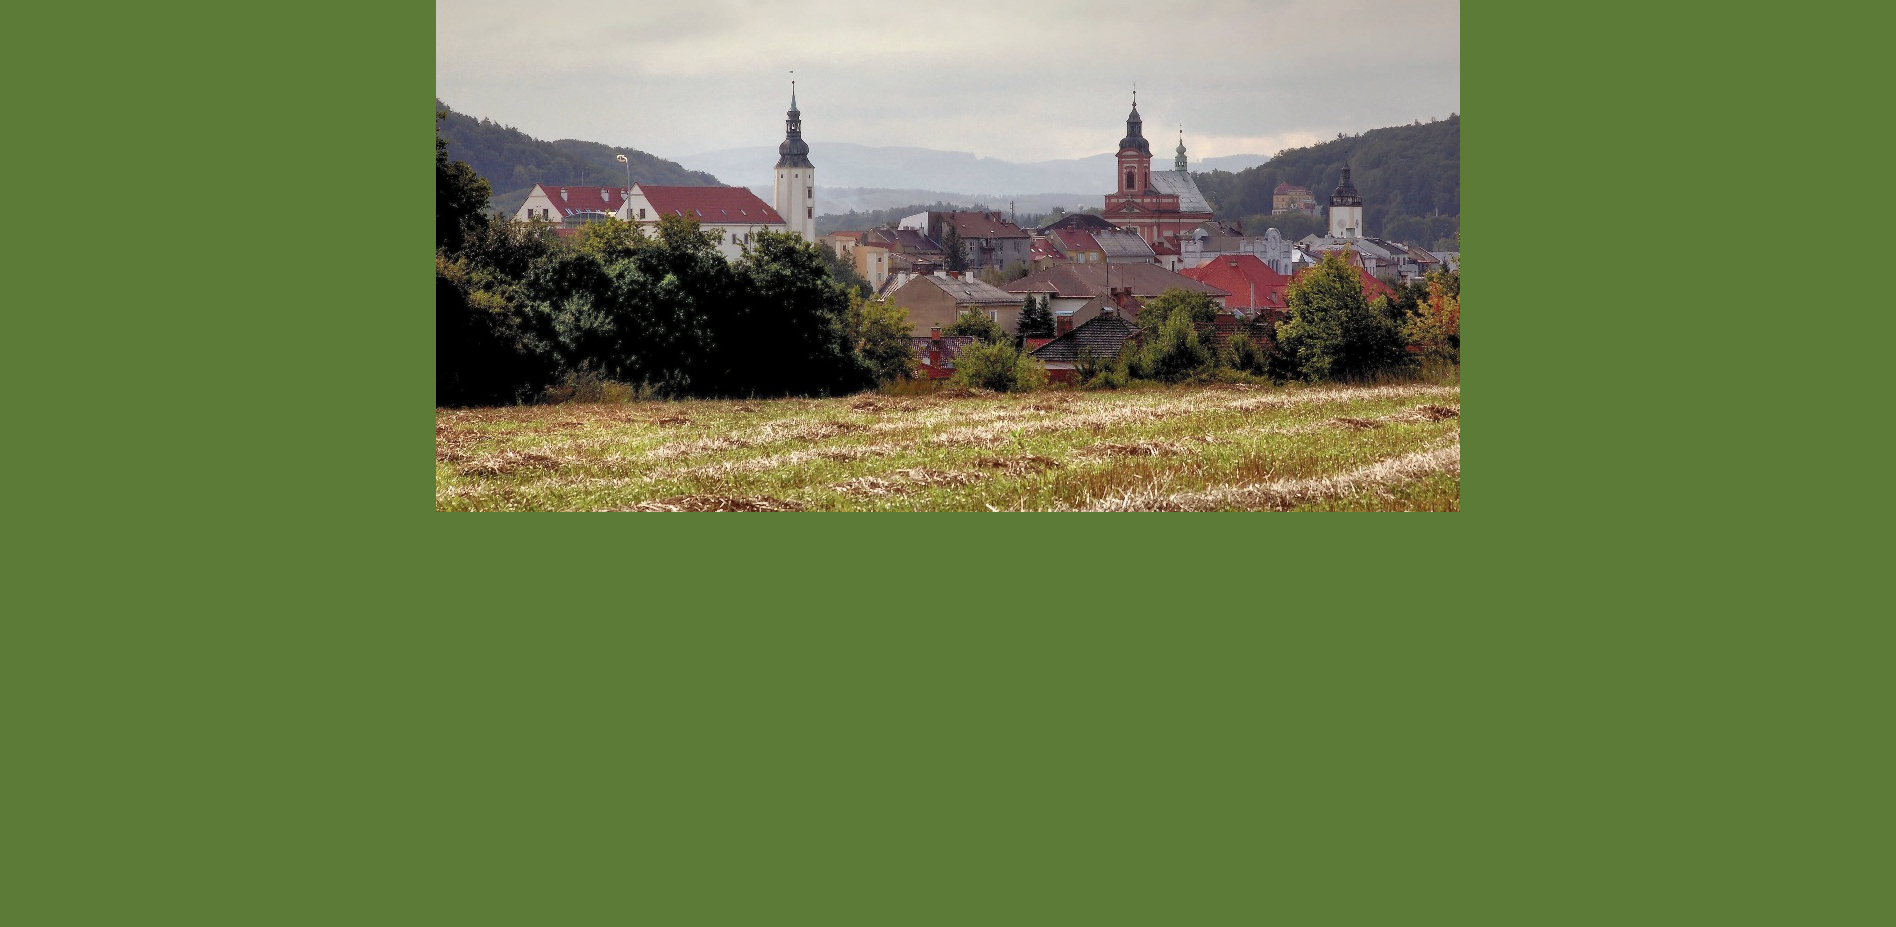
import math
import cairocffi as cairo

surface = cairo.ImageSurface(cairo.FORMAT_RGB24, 1896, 927)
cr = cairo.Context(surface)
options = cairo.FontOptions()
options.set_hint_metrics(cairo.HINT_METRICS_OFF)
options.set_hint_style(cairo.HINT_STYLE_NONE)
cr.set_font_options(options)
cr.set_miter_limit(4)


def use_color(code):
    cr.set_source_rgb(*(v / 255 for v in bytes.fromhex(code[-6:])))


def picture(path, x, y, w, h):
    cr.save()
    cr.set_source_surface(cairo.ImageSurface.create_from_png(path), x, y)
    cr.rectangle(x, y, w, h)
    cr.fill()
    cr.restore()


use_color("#5c7b37")
cr.paint()
picture("img1.png", 436, 0, 1024, 512)
surface.write_to_png("result.png")
